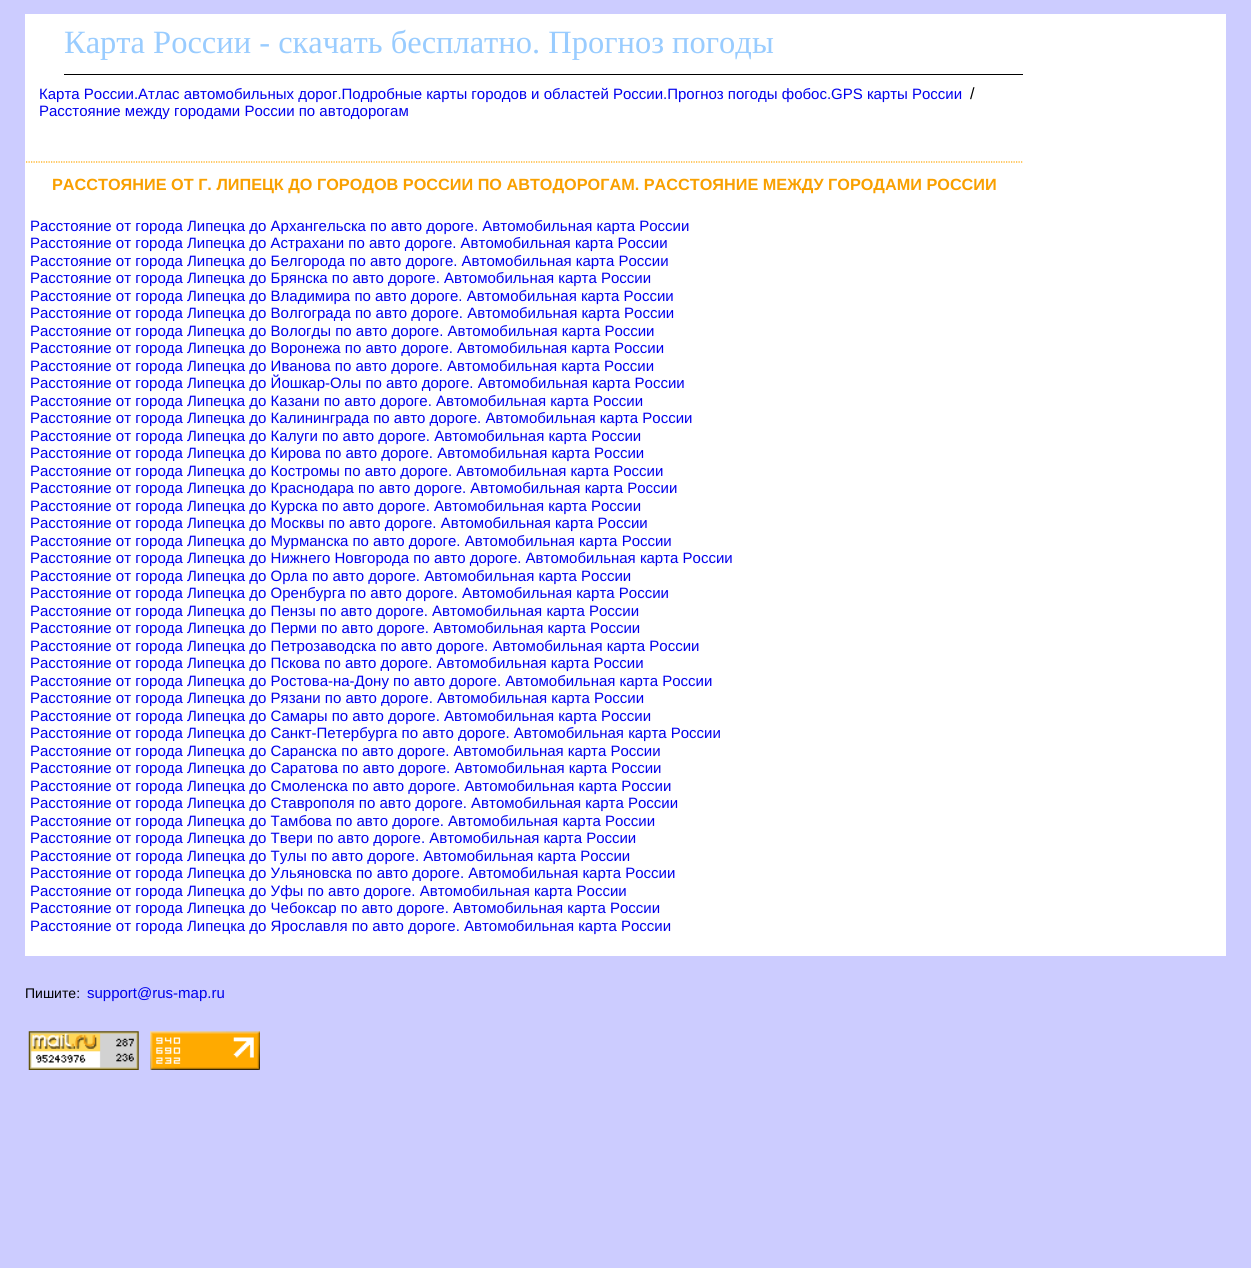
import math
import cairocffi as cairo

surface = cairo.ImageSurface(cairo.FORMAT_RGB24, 1251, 1268)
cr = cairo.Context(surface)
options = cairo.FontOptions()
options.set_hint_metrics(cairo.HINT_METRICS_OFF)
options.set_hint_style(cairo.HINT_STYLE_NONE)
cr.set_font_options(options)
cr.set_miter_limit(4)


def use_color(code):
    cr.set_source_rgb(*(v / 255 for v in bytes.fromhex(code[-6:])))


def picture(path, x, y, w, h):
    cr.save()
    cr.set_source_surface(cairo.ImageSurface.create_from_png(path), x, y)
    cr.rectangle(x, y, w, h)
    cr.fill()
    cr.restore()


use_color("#ccccff")
cr.paint()
use_color("#ffffff")
cr.rectangle(25, 14, 1201, 942)
cr.fill()
use_color("#000000")
cr.rectangle(64, 74, 959, 1)
cr.fill()
cr.select_font_face("Liberation Serif")
cr.set_font_size(32.5)
use_color("#99ccff")
cr.move_to(64, 53)
cr.show_text("Карта России - скачать бесплатно. Прогноз погоды")
cr.select_font_face("Liberation Sans")
cr.set_font_size(15)
use_color("#0000ee")
cr.move_to(39, 99)
cr.show_text("Карта России.Атлас автомобильных дорог.Подробные карты городов и областей России.Прогноз погоды фобос.GPS карты России")
cr.set_font_size(16.25)
use_color("#000000")
cr.move_to(970, 99)
cr.show_text("/")
cr.set_font_size(15)
use_color("#0000ee")
cr.move_to(39, 116)
cr.show_text("Расстояние между городами России по автодорогам")
cr.new_path()
cr.move_to(26, 162)
cr.line_to(1022.5, 162)
use_color("#ffa500")
cr.set_line_width(1.2)
cr.set_dash([1.25, 1.25])
cr.stroke()
cr.select_font_face("Liberation Sans", cairo.FONT_SLANT_NORMAL, cairo.FONT_WEIGHT_BOLD)
cr.set_font_size(16.25)
use_color("#f9a000")
cr.move_to(52, 190)
cr.show_text("РАССТОЯНИЕ ОТ Г. ЛИПЕЦК ДО ГОРОДОВ РОССИИ ПО АВТОДОРОГАМ. РАССТОЯНИЕ МЕЖДУ ГОРОДАМИ РОССИИ")
cr.select_font_face("Liberation Sans")
cr.set_font_size(15)
use_color("#0000ee")
cr.move_to(30, 231)
cr.show_text("Расстояние от города Липецка до Архангельска по авто дороге. Автомобильная карта России")
cr.move_to(30, 248)
cr.show_text("Расстояние от города Липецка до Астрахани по авто дороге. Автомобильная карта России")
cr.move_to(30, 266)
cr.show_text("Расстояние от города Липецка до Белгорода по авто дороге. Автомобильная карта России")
cr.move_to(30, 283)
cr.show_text("Расстояние от города Липецка до Брянска по авто дороге. Автомобильная карта России")
cr.move_to(30, 301)
cr.show_text("Расстояние от города Липецка до Владимира по авто дороге. Автомобильная карта России")
cr.move_to(30, 318)
cr.show_text("Расстояние от города Липецка до Волгограда по авто дороге. Автомобильная карта России")
cr.move_to(30, 336)
cr.show_text("Расстояние от города Липецка до Вологды по авто дороге. Автомобильная карта России")
cr.move_to(30, 353)
cr.show_text("Расстояние от города Липецка до Воронежа по авто дороге. Автомобильная карта России")
cr.move_to(30, 371)
cr.show_text("Расстояние от города Липецка до Иванова по авто дороге. Автомобильная карта России")
cr.move_to(30, 388)
cr.show_text("Расстояние от города Липецка до Йошкар-Олы по авто дороге. Автомобильная карта России")
cr.move_to(30, 406)
cr.show_text("Расстояние от города Липецка до Казани по авто дороге. Автомобильная карта России")
cr.move_to(30, 423)
cr.show_text("Расстояние от города Липецка до Калининграда по авто дороге. Автомобильная карта России")
cr.move_to(30, 441)
cr.show_text("Расстояние от города Липецка до Калуги по авто дороге. Автомобильная карта России")
cr.move_to(30, 458)
cr.show_text("Расстояние от города Липецка до Кирова по авто дороге. Автомобильная карта России")
cr.move_to(30, 476)
cr.show_text("Расстояние от города Липецка до Костромы по авто дороге. Автомобильная карта России")
cr.move_to(30, 493)
cr.show_text("Расстояние от города Липецка до Краснодара по авто дороге. Автомобильная карта России")
cr.move_to(30, 511)
cr.show_text("Расстояние от города Липецка до Курска по авто дороге. Автомобильная карта России")
cr.move_to(30, 528)
cr.show_text("Расстояние от города Липецка до Москвы по авто дороге. Автомобильная карта России")
cr.move_to(30, 546)
cr.show_text("Расстояние от города Липецка до Мурманска по авто дороге. Автомобильная карта России")
cr.move_to(30, 563)
cr.show_text("Расстояние от города Липецка до Нижнего Новгорода по авто дороге. Автомобильная карта России")
cr.move_to(30, 581)
cr.show_text("Расстояние от города Липецка до Орла по авто дороге. Автомобильная карта России")
cr.move_to(30, 598)
cr.show_text("Расстояние от города Липецка до Оренбурга по авто дороге. Автомобильная карта России")
cr.move_to(30, 616)
cr.show_text("Расстояние от города Липецка до Пензы по авто дороге. Автомобильная карта России")
cr.move_to(30, 633)
cr.show_text("Расстояние от города Липецка до Перми по авто дороге. Автомобильная карта России")
cr.move_to(30, 651)
cr.show_text("Расстояние от города Липецка до Петрозаводска по авто дороге. Автомобильная карта России")
cr.move_to(30, 668)
cr.show_text("Расстояние от города Липецка до Пскова по авто дороге. Автомобильная карта России")
cr.move_to(30, 686)
cr.show_text("Расстояние от города Липецка до Ростова-на-Дону по авто дороге. Автомобильная карта России")
cr.move_to(30, 703)
cr.show_text("Расстояние от города Липецка до Рязани по авто дороге. Автомобильная карта России")
cr.move_to(30, 721)
cr.show_text("Расстояние от города Липецка до Самары по авто дороге. Автомобильная карта России")
cr.move_to(30, 738)
cr.show_text("Расстояние от города Липецка до Санкт-Петербурга по авто дороге. Автомобильная карта России")
cr.move_to(30, 756)
cr.show_text("Расстояние от города Липецка до Саранска по авто дороге. Автомобильная карта России")
cr.move_to(30, 773)
cr.show_text("Расстояние от города Липецка до Саратова по авто дороге. Автомобильная карта России")
cr.move_to(30, 791)
cr.show_text("Расстояние от города Липецка до Смоленска по авто дороге. Автомобильная карта России")
cr.move_to(30, 808)
cr.show_text("Расстояние от города Липецка до Ставрополя по авто дороге. Автомобильная карта России")
cr.move_to(30, 826)
cr.show_text("Расстояние от города Липецка до Тамбова по авто дороге. Автомобильная карта России")
cr.move_to(30, 843)
cr.show_text("Расстояние от города Липецка до Твери по авто дороге. Автомобильная карта России")
cr.move_to(30, 861)
cr.show_text("Расстояние от города Липецка до Тулы по авто дороге. Автомобильная карта России")
cr.move_to(30, 878)
cr.show_text("Расстояние от города Липецка до Ульяновска по авто дороге. Автомобильная карта России")
cr.move_to(30, 896)
cr.show_text("Расстояние от города Липецка до Уфы по авто дороге. Автомобильная карта России")
cr.move_to(30, 913)
cr.show_text("Расстояние от города Липецка до Чебоксар по авто дороге. Автомобильная карта России")
cr.move_to(30, 931)
cr.show_text("Расстояние от города Липецка до Ярославля по авто дороге. Автомобильная карта России")
cr.set_font_size(14)
use_color("#000000")
cr.move_to(25, 998)
cr.show_text("Пишите:")
cr.set_font_size(15)
use_color("#0000ee")
cr.move_to(87, 998)
cr.show_text("support@rus-map.ru")
picture("img1.png", 28, 1031, 111, 39)
picture("img2.png", 150, 1031, 110, 39)
surface.write_to_png("result.png")
